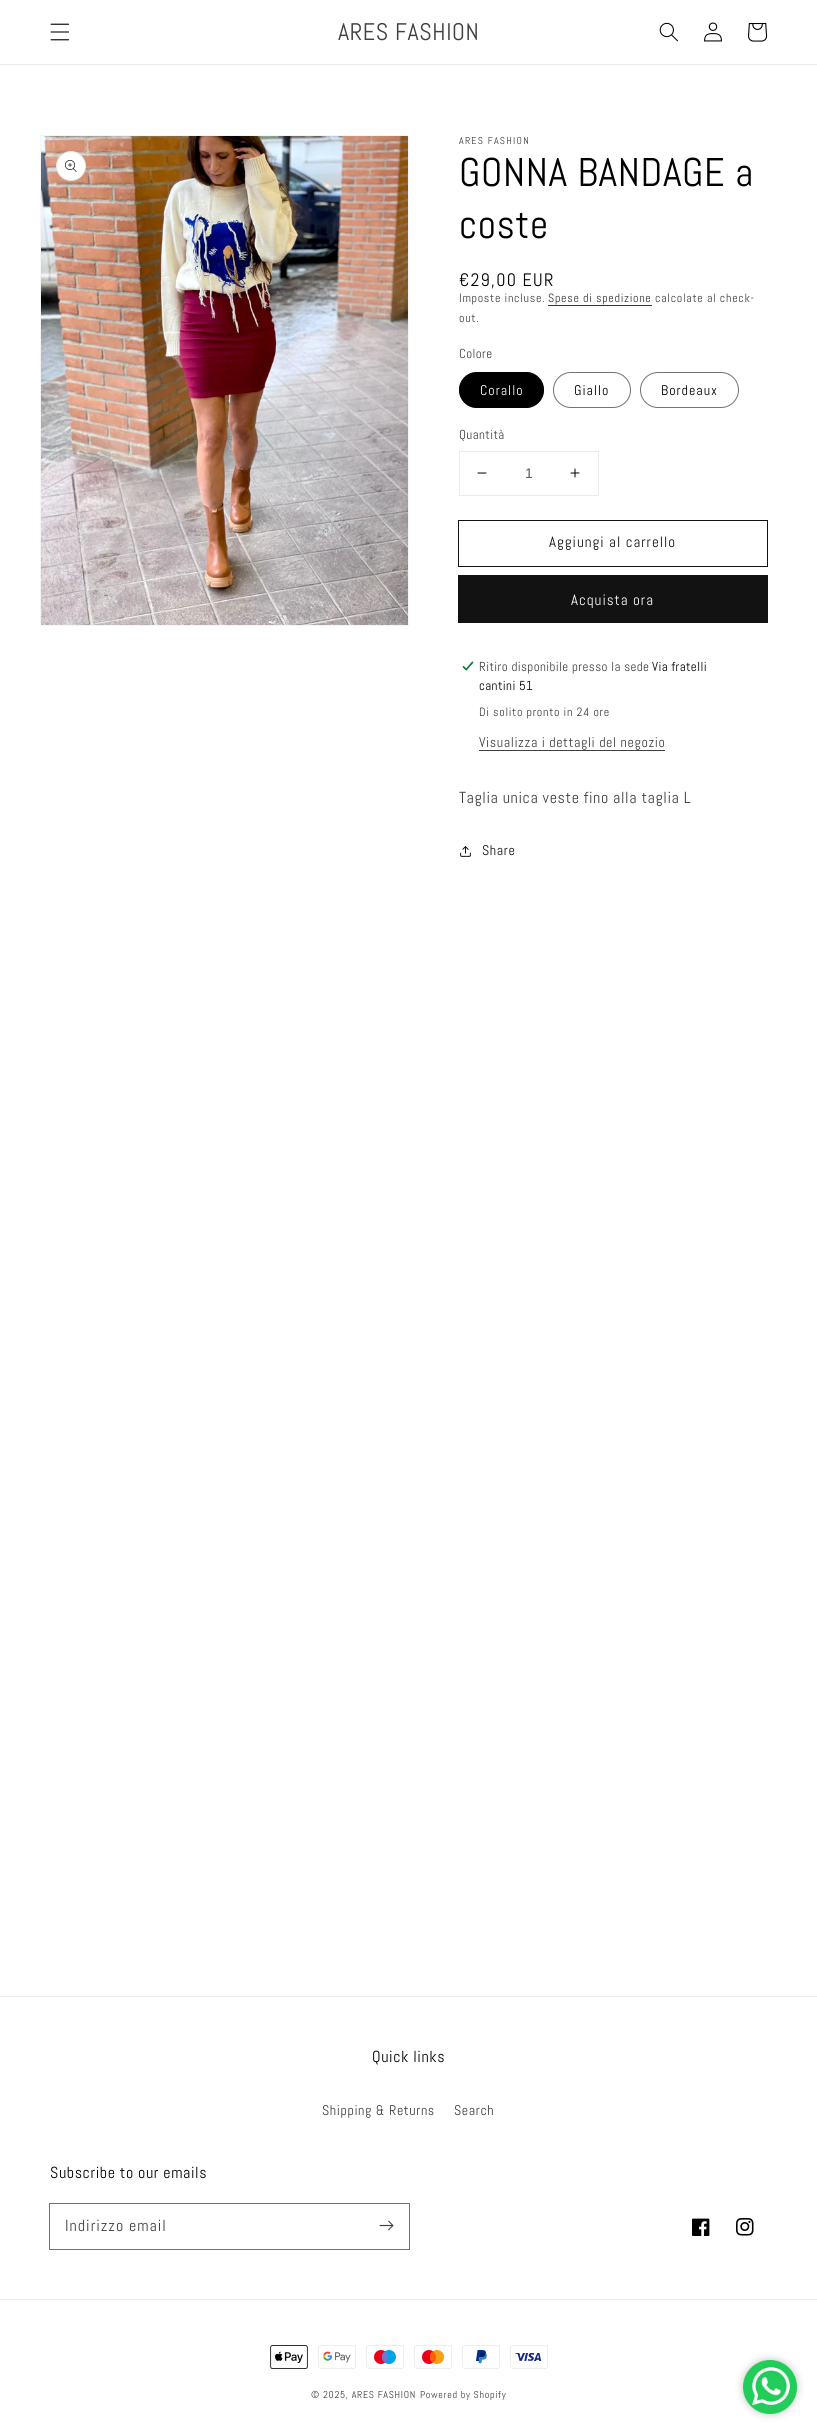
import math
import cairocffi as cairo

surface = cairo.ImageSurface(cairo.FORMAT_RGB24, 817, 2434)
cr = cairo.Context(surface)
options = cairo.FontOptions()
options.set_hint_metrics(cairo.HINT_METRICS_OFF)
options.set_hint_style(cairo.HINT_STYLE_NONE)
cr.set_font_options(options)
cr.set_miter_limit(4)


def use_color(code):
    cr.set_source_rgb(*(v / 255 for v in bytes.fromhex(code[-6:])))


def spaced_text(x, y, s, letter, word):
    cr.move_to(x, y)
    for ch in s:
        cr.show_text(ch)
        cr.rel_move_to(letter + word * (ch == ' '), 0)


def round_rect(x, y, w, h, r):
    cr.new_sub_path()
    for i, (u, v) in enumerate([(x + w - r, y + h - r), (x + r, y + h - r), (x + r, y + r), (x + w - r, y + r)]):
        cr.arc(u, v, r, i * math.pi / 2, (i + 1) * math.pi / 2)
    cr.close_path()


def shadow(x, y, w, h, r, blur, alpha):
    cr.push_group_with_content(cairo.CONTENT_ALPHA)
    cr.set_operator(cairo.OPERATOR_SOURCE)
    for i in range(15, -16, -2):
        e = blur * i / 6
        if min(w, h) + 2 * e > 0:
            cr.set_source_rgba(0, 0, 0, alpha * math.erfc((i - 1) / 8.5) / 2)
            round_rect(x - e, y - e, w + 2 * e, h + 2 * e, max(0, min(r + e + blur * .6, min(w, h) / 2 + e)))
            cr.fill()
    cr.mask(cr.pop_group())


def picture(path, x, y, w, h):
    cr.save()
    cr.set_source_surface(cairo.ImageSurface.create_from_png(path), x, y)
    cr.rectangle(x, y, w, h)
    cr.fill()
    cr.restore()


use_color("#ffffff")
cr.paint()
use_color("#ebebeb")
cr.rectangle(0, 64, 817, 1)
cr.fill()
picture("img1.png", 50, 23, 20, 18)
cr.select_font_face("Abel")
cr.set_font_size(24)
use_color("#404040")
spaced_text(338, 40, "ARES FASHION", 0.6, 0)
picture("img2.png", 659, 22, 19, 20)
picture("img3.png", 704, 22, 18, 20)
picture("img4.png", 748, 23, 20, 19)
cr.rectangle(40.5, 135.5, 368, 490)
use_color("#f5f5f5")
cr.set_line_width(1)
cr.stroke()
picture("img5.png", 41, 136, 367, 489)
use_color("#ffffff")
cr.arc(71, 166, 15, 0, 2 * math.pi)
cr.fill()
cr.arc(71, 166, 14.5, 0, 2 * math.pi)
cr.set_source_rgba(0, 0, 0, 0.1)
cr.stroke()
picture("img6.png", 65, 160, 12, 12)
cr.set_font_size(10)
use_color("#404040")
spaced_text(459, 144, "ARES FASHION", 1.25, 0)
cr.set_font_size(40)
use_color("#000000")
spaced_text(459, 186, "GONNA BANDAGE a", 0.6, 0)
spaced_text(459, 238, "coste", 0.6, 0)
cr.set_font_size(18)
spaced_text(459, 286, "€29,00 EUR", 1.25, 0)
cr.set_font_size(12)
use_color("#404040")
spaced_text(459, 302, "Imposte incluse.", 0.7, 0)
use_color("#363636")
spaced_text(548, 302, "Spese di spedizione", 0.7, 0)
cr.rectangle(548, 305, 104, 1)
cr.fill()
use_color("#404040")
spaced_text(655, 302, "calcolate al check-", 0.7, 0)
spaced_text(459, 322, "out.", 0.7, 0)
cr.set_font_size(13)
spaced_text(459, 358, "Colore", 0.4, 0)
use_color("#000000")
round_rect(459, 372, 85, 36, 18)
cr.fill()
round_rect(459.5, 372.5, 84, 35, 17.5)
cr.set_source_rgba(0, 0, 0, 0.55)
cr.stroke()
cr.set_font_size(14)
use_color("#ffffff")
spaced_text(480, 395, "Corallo", 1, 0)
round_rect(553.5, 372.5, 77, 35, 17.5)
use_color("#737373")
cr.stroke()
use_color("#000000")
spaced_text(574, 395, "Giallo", 1, 0)
round_rect(640.5, 372.5, 98, 35, 17.5)
use_color("#737373")
cr.stroke()
use_color("#000000")
spaced_text(661, 395, "Bordeaux", 1, 0)
cr.set_font_size(13)
use_color("#404040")
spaced_text(459, 439, "Quantità", 0.4, 0)
cr.rectangle(459.5, 451.5, 139, 44)
use_color("#ebebeb")
cr.stroke()
picture("img7.png", 477, 472, 10, 2)
cr.select_font_face("Liberation Sans")
cr.set_font_size(14)
use_color("#5c5c5c")
cr.move_to(525, 478)
cr.show_text("1")
picture("img8.png", 570, 468, 10, 10)
cr.rectangle(458.5, 520.5, 309, 46)
use_color("#121212")
cr.stroke()
cr.select_font_face("Abel")
cr.set_font_size(15)
spaced_text(549, 547, "Aggiungi al carrello", 1, 0)
cr.rectangle(458.5, 575.5, 309, 47)
cr.stroke()
cr.rectangle(459, 576, 308, 46)
cr.fill()
use_color("#ffffff")
spaced_text(571, 605, "Acquista ora", 1, 0)
picture("img9.png", 462, 661, 12, 10)
cr.set_font_size(13)
use_color("#404040")
spaced_text(479, 671, "Ritiro disponibile presso la sede", 0.4, 0)
use_color("#000000")
spaced_text(652, 671, "Via fratelli", 0.4, 0)
spaced_text(479, 690, "cantini 51", 0.4, 0)
cr.set_font_size(12)
use_color("#404040")
spaced_text(479, 716, "Di solito pronto in 24 ore", 0.7, 0)
cr.set_font_size(14)
spaced_text(479, 747, "Visualizza i dettagli del negozio", 0.6, 0)
cr.rectangle(479, 750, 186, 1)
cr.fill()
cr.set_font_size(16)
spaced_text(459, 803, "Taglia unica veste fino alla taglia L", 0.6, 0)
picture("img10.png", 460, 846, 11, 11)
cr.set_font_size(14)
use_color("#121212")
spaced_text(482, 855, "Share", 0.6, 0)
use_color("#ebebeb")
cr.rectangle(0, 1996, 817, 1)
cr.fill()
cr.set_font_size(16)
use_color("#000000")
spaced_text(372, 2062, "Quick links", 0.6, 0)
cr.set_font_size(14)
use_color("#404040")
spaced_text(322, 2115, "Shipping & Returns", 0.6, 0)
spaced_text(454, 2115, "Search", 0.6, 0)
cr.set_font_size(16)
use_color("#000000")
spaced_text(50, 2178, "Subscribe to our emails", 0.6, 0)
cr.rectangle(49.5, 2203.5, 360, 46)
use_color("#737373")
cr.stroke()
use_color("#404040")
spaced_text(65, 2231, "Indirizzo email", 1, 0)
picture("img11.png", 379, 2220, 15, 11)
picture("img12.png", 692, 2218, 18, 18)
picture("img13.png", 736, 2218, 18, 18)
use_color("#ebebeb")
cr.rectangle(0, 2299, 817, 1)
cr.fill()
picture("img14.png", 270, 2345, 38, 24)
picture("img15.png", 318, 2345, 38, 24)
picture("img16.png", 366, 2345, 38, 24)
picture("img17.png", 414, 2345, 38, 24)
picture("img18.png", 462, 2345, 38, 24)
picture("img19.png", 510, 2345, 38, 24)
cr.set_font_size(10)
use_color("#404040")
spaced_text(311, 2398, "© 2025, ARES FASHION", 0.7, 0)
spaced_text(420, 2398, "Powered by Shopify", 0.7, 0)
use_color("#c2c2c2")
shadow(743, 2360, 54, 54, 27, 4, 1)
picture("img20.png", 743, 2360, 54, 54)
surface.write_to_png("result.png")
